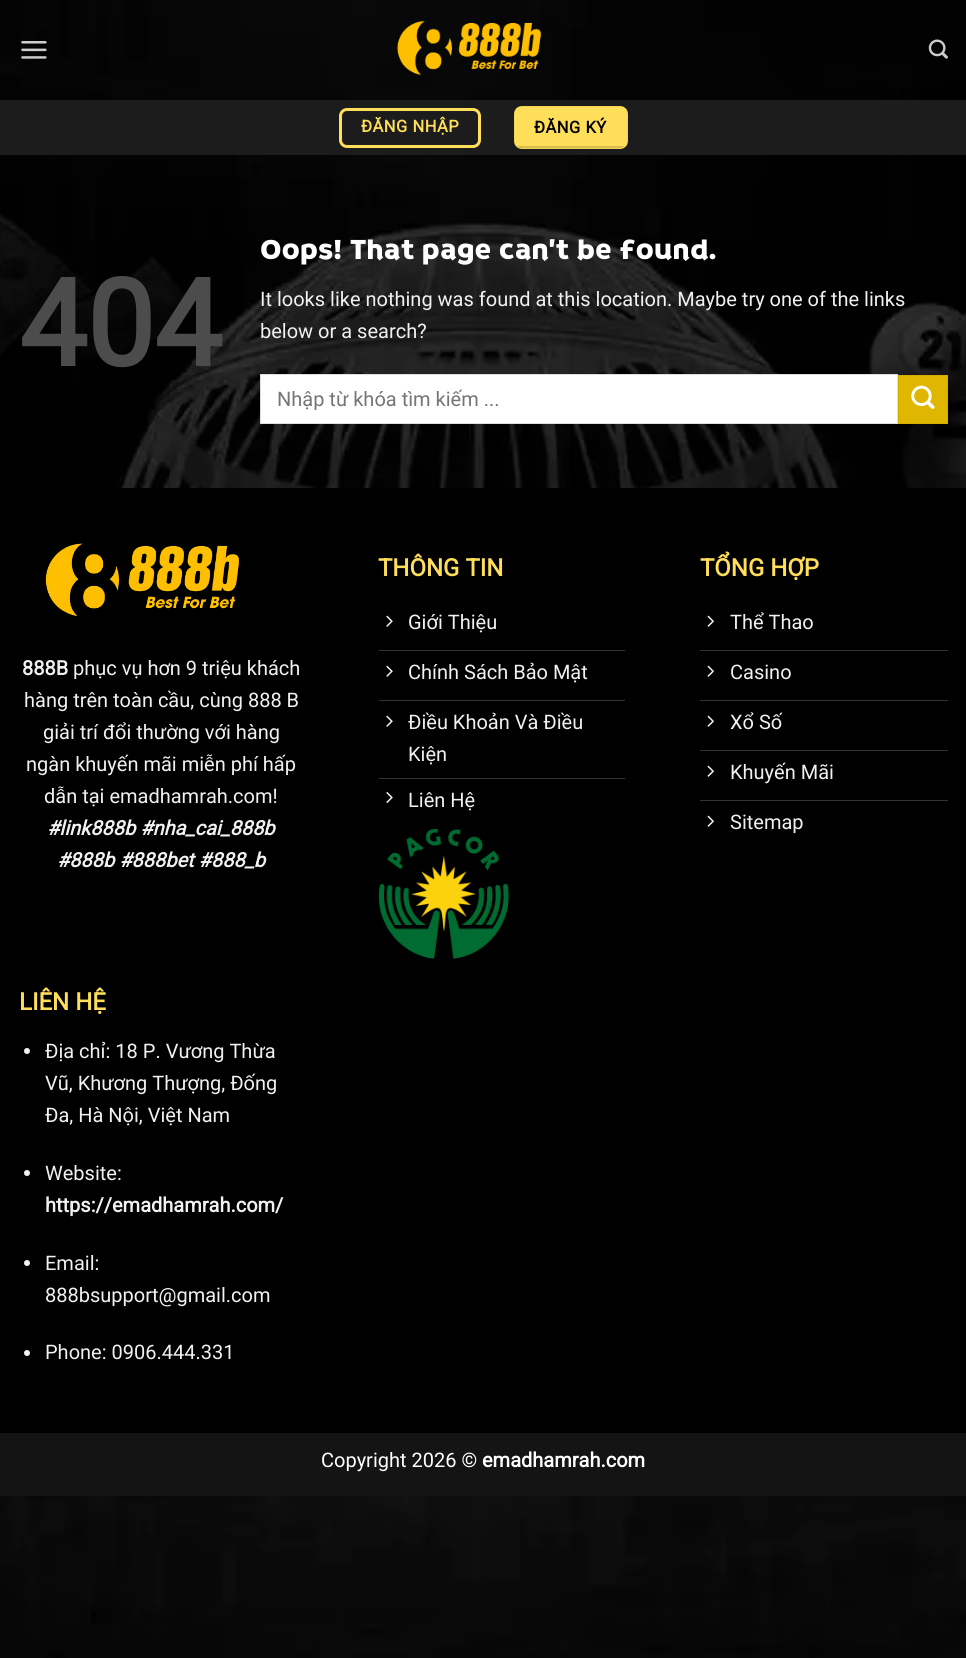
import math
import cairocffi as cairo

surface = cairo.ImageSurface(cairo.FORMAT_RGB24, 966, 1658)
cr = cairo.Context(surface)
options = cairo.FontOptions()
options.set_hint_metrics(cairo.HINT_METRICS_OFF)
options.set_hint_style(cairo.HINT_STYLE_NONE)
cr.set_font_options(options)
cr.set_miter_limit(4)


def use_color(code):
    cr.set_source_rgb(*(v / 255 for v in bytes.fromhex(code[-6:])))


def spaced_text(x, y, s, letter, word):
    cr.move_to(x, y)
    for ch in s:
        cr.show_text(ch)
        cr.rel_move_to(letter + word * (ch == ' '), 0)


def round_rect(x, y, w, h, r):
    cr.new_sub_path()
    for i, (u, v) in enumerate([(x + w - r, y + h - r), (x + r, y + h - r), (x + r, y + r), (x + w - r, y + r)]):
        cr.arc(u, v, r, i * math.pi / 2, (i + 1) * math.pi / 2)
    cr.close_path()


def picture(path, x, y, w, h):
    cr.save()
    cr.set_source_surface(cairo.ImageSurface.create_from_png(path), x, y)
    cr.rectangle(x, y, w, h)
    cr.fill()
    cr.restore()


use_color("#ffffff")
cr.paint()
picture("img1.png", 0, 0, 966, 1658)
picture("img2.png", 21, 41, 26, 18)
picture("img3.png", 397, 20, 144, 56)
picture("img4.png", 928, 39, 20, 20)
use_color("#1c1c1c")
cr.rectangle(0, 100, 966, 55)
cr.fill()
round_rect(340.5, 109.5, 139, 37, 6.5)
use_color("#ffde59")
cr.set_line_width(3)
cr.stroke()
cr.select_font_face("Roboto", cairo.FONT_SLANT_NORMAL, cairo.FONT_WEIGHT_BOLD)
cr.set_font_size(16.5)
spaced_text(361, 132, "ĐĂNG NHẬP", 0.5, 0)
round_rect(514, 106, 114, 43, 8)
cr.fill()
cr.rectangle(514.5, 106.5, 113, 42)
cr.set_source_rgba(0, 0, 0, 0.05)
cr.set_line_width(1)
cr.stroke()
use_color("#000000")
spaced_text(534, 133, "ĐĂNG KÝ", 0.5, 0)
cr.set_source_rgba(0, 0, 0, 0.15)
cr.new_path()
cr.move_to(517, 146)
cr.curve_to(518, 147, 519, 148, 521, 148)
cr.line_to(620, 148)
cr.curve_to(622, 148, 623, 147, 624, 146)
cr.close_path()
cr.fill()
cr.set_font_size(120)
use_color("#4c4c4c")
cr.move_to(19, 366)
cr.show_text("404")
cr.select_font_face("Braah One")
cr.set_font_size(30)
use_color("#ffffff")
cr.move_to(260, 259)
cr.show_text("Oops! That page can’t be found.")
cr.select_font_face("Roboto")
cr.set_font_size(20)
use_color("#f1f1f1")
cr.move_to(260, 306)
cr.show_text("It looks like nothing was found at this location. Maybe try one of the links")
cr.move_to(260, 338)
cr.show_text("below or a search?")
use_color("#ffffff")
cr.rectangle(260.5, 374.5, 637, 49)
cr.fill_preserve()
use_color("#dddddd")
cr.stroke()
use_color("#757575")
cr.move_to(277, 406)
cr.show_text("Nhập từ khóa tìm kiếm ...")
use_color("#e0b700")
cr.rectangle(898.5, 375.5, 49, 48)
cr.fill_preserve()
use_color("#d5ae00")
cr.stroke()
picture("img5.png", 911, 385, 24, 24)
use_color("#000000")
cr.rectangle(0, 488, 966, 945)
cr.fill()
picture("img6.png", 45, 543, 194, 73)
cr.select_font_face("Roboto", cairo.FONT_SLANT_NORMAL, cairo.FONT_WEIGHT_BOLD)
use_color("#f1f1f1")
cr.move_to(22, 675)
cr.show_text("888B")
cr.select_font_face("Roboto")
cr.move_to(73, 675)
cr.show_text("phục vụ hơn 9 triệu khách")
cr.move_to(24, 707)
cr.show_text("hàng trên toàn cầu, cùng 888 B")
cr.move_to(43, 739)
cr.show_text("giải trí đổi thường với hàng")
cr.move_to(26, 771)
cr.show_text("ngàn khuyến mãi miễn phí hấp")
cr.move_to(44, 803)
cr.show_text("dẫn tại emadhamrah.com!")
cr.select_font_face("Roboto", cairo.FONT_SLANT_ITALIC, cairo.FONT_WEIGHT_BOLD)
cr.move_to(47, 835)
cr.show_text("#link888b #nha_cai_888b")
cr.move_to(57, 867)
cr.show_text("#888b #888bet #888_b")
cr.select_font_face("Roboto", cairo.FONT_SLANT_NORMAL, cairo.FONT_WEIGHT_BOLD)
cr.set_font_size(24)
use_color("#ffde59")
cr.move_to(378, 576)
cr.show_text("THÔNG TIN")
use_color("#333333")
cr.rectangle(379, 650, 246, 1)
cr.fill()
picture("img7.png", 386, 615, 7, 12)
cr.select_font_face("Roboto")
cr.set_font_size(20)
use_color("#f1f1f1")
cr.move_to(408, 629)
cr.show_text("Giới Thiệu")
use_color("#333333")
cr.rectangle(379, 700, 246, 1)
cr.fill()
picture("img7.png", 386, 665, 7, 12)
use_color("#f1f1f1")
cr.move_to(408, 679)
cr.show_text("Chính Sách Bảo Mật")
use_color("#333333")
cr.rectangle(379, 778, 246, 1)
cr.fill()
picture("img7.png", 386, 715, 7, 12)
use_color("#f1f1f1")
cr.move_to(408, 729)
cr.show_text("Điều Khoản Và Điều")
cr.move_to(408, 761)
cr.show_text("Kiện")
picture("img8.png", 386, 792, 7, 11)
cr.move_to(408, 807)
cr.show_text("Liên Hệ")
picture("img9.png", 378, 828, 131, 131)
cr.select_font_face("Roboto", cairo.FONT_SLANT_NORMAL, cairo.FONT_WEIGHT_BOLD)
cr.set_font_size(24)
use_color("#ffde59")
cr.move_to(700, 576)
cr.show_text("TỔNG HỢP")
use_color("#333333")
cr.rectangle(700, 650, 248, 1)
cr.fill()
picture("img10.png", 707, 615, 7, 12)
cr.select_font_face("Roboto")
cr.set_font_size(20)
use_color("#f1f1f1")
cr.move_to(730, 629)
cr.show_text("Thể Thao")
use_color("#333333")
cr.rectangle(700, 700, 248, 1)
cr.fill()
picture("img10.png", 707, 665, 7, 12)
use_color("#f1f1f1")
cr.move_to(730, 679)
cr.show_text("Casino")
use_color("#333333")
cr.rectangle(700, 750, 248, 1)
cr.fill()
picture("img10.png", 707, 715, 7, 12)
use_color("#f1f1f1")
cr.move_to(730, 729)
cr.show_text("Xổ Số")
use_color("#333333")
cr.rectangle(700, 800, 248, 1)
cr.fill()
picture("img10.png", 707, 765, 7, 12)
use_color("#f1f1f1")
cr.move_to(730, 779)
cr.show_text("Khuyến Mãi")
picture("img10.png", 707, 815, 7, 12)
cr.move_to(730, 829)
cr.show_text("Sitemap")
cr.select_font_face("Roboto", cairo.FONT_SLANT_NORMAL, cairo.FONT_WEIGHT_BOLD)
cr.set_font_size(24)
use_color("#ffde59")
cr.move_to(19, 1010)
cr.show_text("LIÊN HỆ")
use_color("#f1f1f1")
cr.new_path()
cr.arc(27, 1051, 3, 0, 2 * math.pi)
cr.fill()
cr.select_font_face("Roboto")
cr.set_font_size(20)
cr.move_to(45, 1058)
cr.show_text("Địa chỉ: 18 P. Vương Thừa")
cr.move_to(45, 1090)
cr.show_text("Vũ, Khương Thượng, Đống")
cr.move_to(45, 1122)
cr.show_text("Đa, Hà Nội, Việt Nam")
cr.new_path()
cr.arc(27, 1173, 3, 0, 2 * math.pi)
cr.fill()
cr.move_to(45, 1180)
cr.show_text("Website:")
cr.select_font_face("Roboto", cairo.FONT_SLANT_NORMAL, cairo.FONT_WEIGHT_BOLD)
cr.move_to(45, 1212)
cr.show_text("https://emadhamrah.com/")
cr.new_path()
cr.arc(27, 1263, 3, 0, 2 * math.pi)
cr.fill()
cr.select_font_face("Roboto")
cr.move_to(45, 1270)
cr.show_text("Email:")
cr.move_to(45, 1302)
cr.show_text("888bsupport@gmail.com")
cr.new_path()
cr.arc(27, 1353, 3, 0, 2 * math.pi)
cr.fill()
cr.move_to(45, 1359)
cr.show_text("Phone: 0906.444.331")
use_color("#141414")
cr.rectangle(0, 1433, 966, 63)
cr.fill()
use_color("#ffffff")
cr.move_to(321, 1467)
cr.show_text("Copyright 2026 ©")
cr.select_font_face("Roboto", cairo.FONT_SLANT_NORMAL, cairo.FONT_WEIGHT_BOLD)
cr.move_to(482, 1467)
cr.show_text("emadhamrah.com")
surface.write_to_png("result.png")
